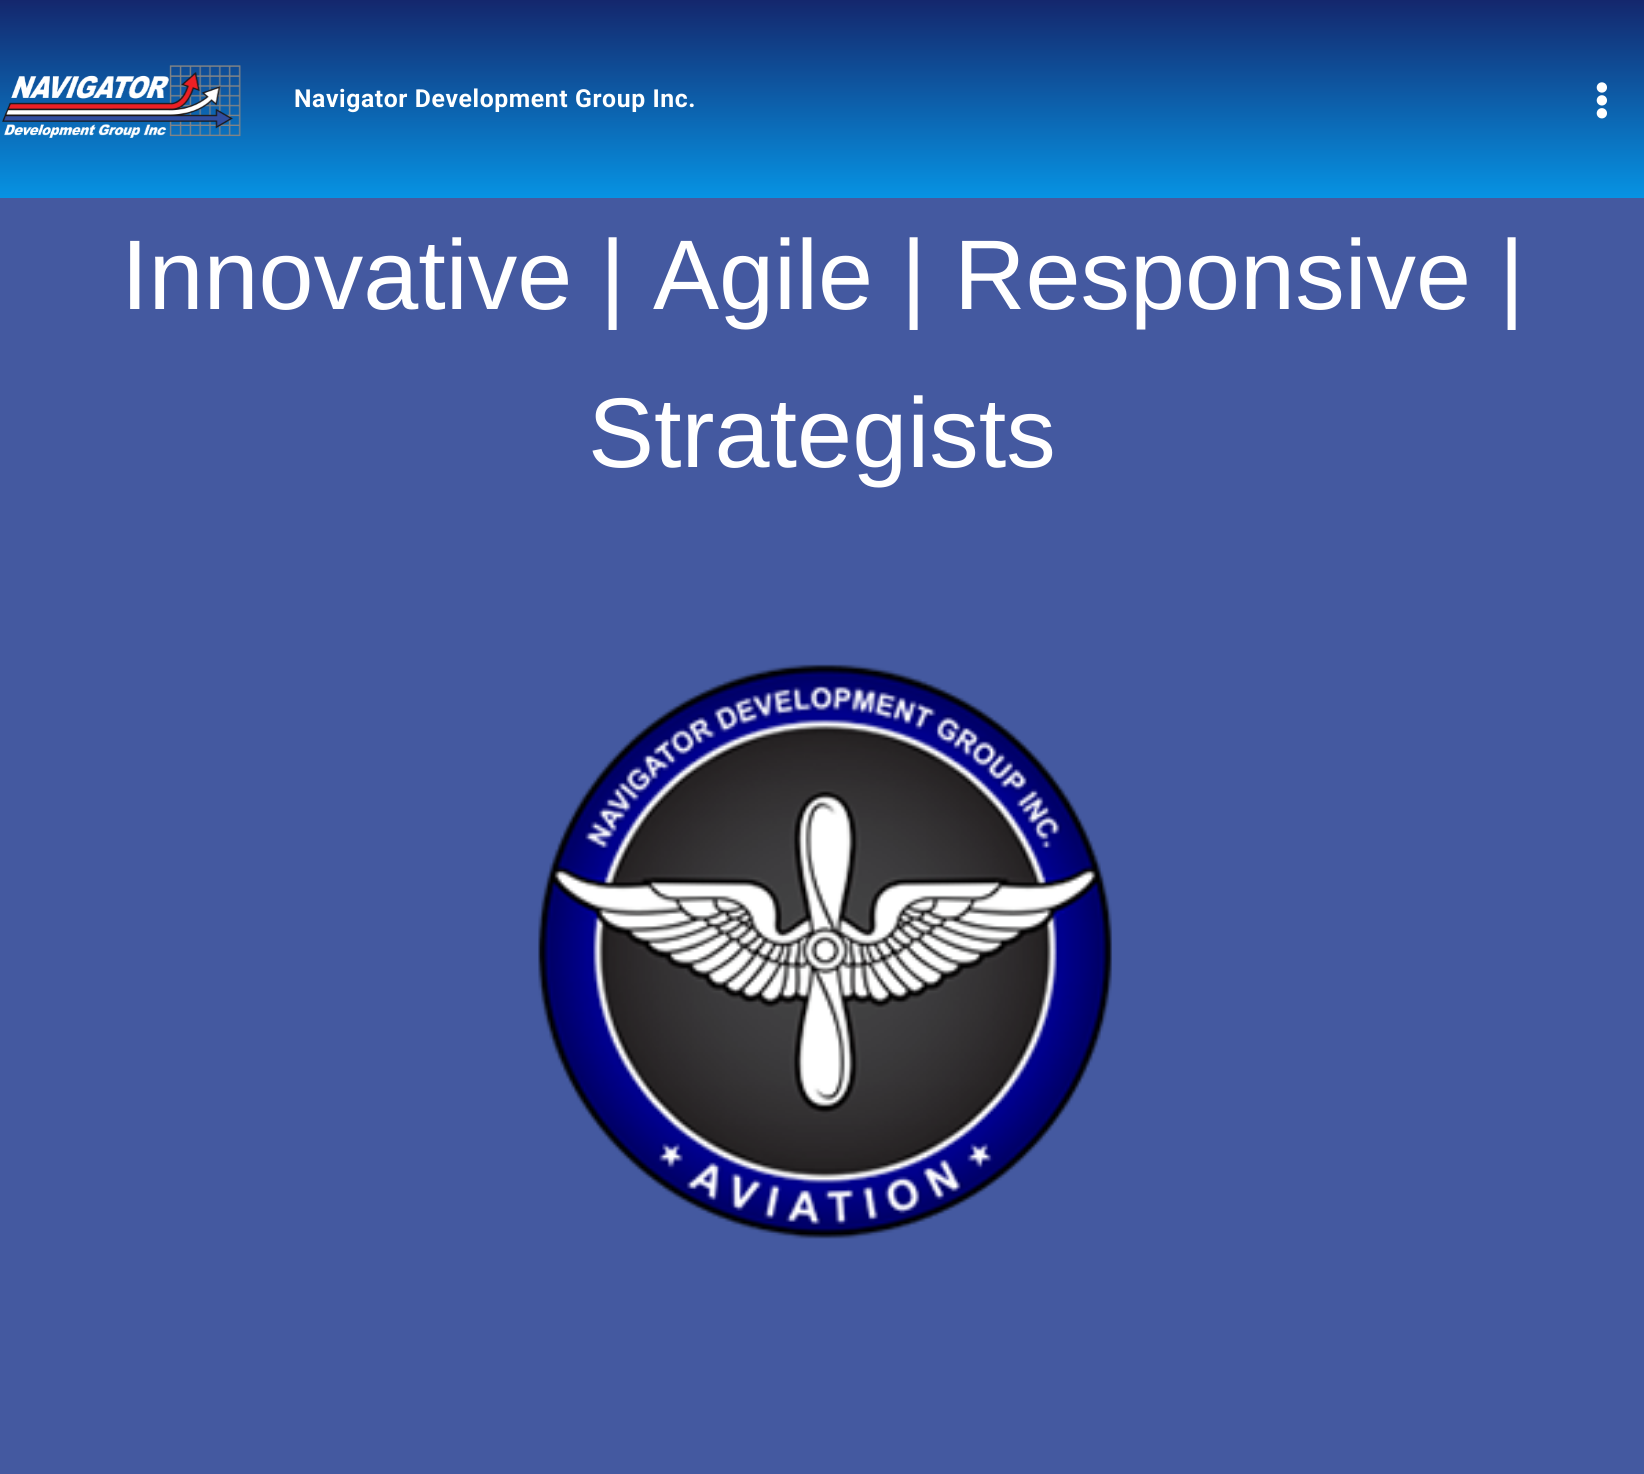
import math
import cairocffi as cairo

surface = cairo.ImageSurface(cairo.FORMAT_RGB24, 1644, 1474)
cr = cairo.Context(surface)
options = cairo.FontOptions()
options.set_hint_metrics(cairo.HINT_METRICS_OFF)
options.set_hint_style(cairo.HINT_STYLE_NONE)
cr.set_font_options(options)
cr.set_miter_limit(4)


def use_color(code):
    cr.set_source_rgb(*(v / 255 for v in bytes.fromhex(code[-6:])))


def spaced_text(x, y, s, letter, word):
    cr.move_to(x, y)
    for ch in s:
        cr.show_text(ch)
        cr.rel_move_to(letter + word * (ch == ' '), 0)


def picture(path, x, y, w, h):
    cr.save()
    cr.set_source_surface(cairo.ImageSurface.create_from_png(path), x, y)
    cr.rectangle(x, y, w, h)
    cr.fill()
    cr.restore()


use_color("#4459a0")
cr.paint()
gradient = cairo.LinearGradient(822, 198, 822, 0)
gradient.add_color_stop_rgba(0, 0.024, 0.576, 0.89, 1)
gradient.add_color_stop_rgba(1, 0.078, 0.153, 0.427, 1)
cr.set_source(gradient)
cr.rectangle(0, 0, 1644, 198)
cr.fill()
picture("img1.png", 2, 65, 239, 73)
cr.select_font_face("Roboto", cairo.FONT_SLANT_NORMAL, cairo.FONT_WEIGHT_BOLD)
cr.set_font_size(24.75)
use_color("#ffffff")
spaced_text(294, 107, "Navigator Development Group Inc.", 0.6, 0)
picture("img2.png", 1596, 82, 11, 37)
cr.select_font_face("Liberation Sans")
cr.set_font_size(99)
cr.move_to(121, 309)
cr.show_text("Innovative | Agile | Responsive |")
cr.move_to(588, 467)
cr.show_text("Strategists")
picture("img3.png", 538, 664, 574, 575)
surface.write_to_png("result.png")
